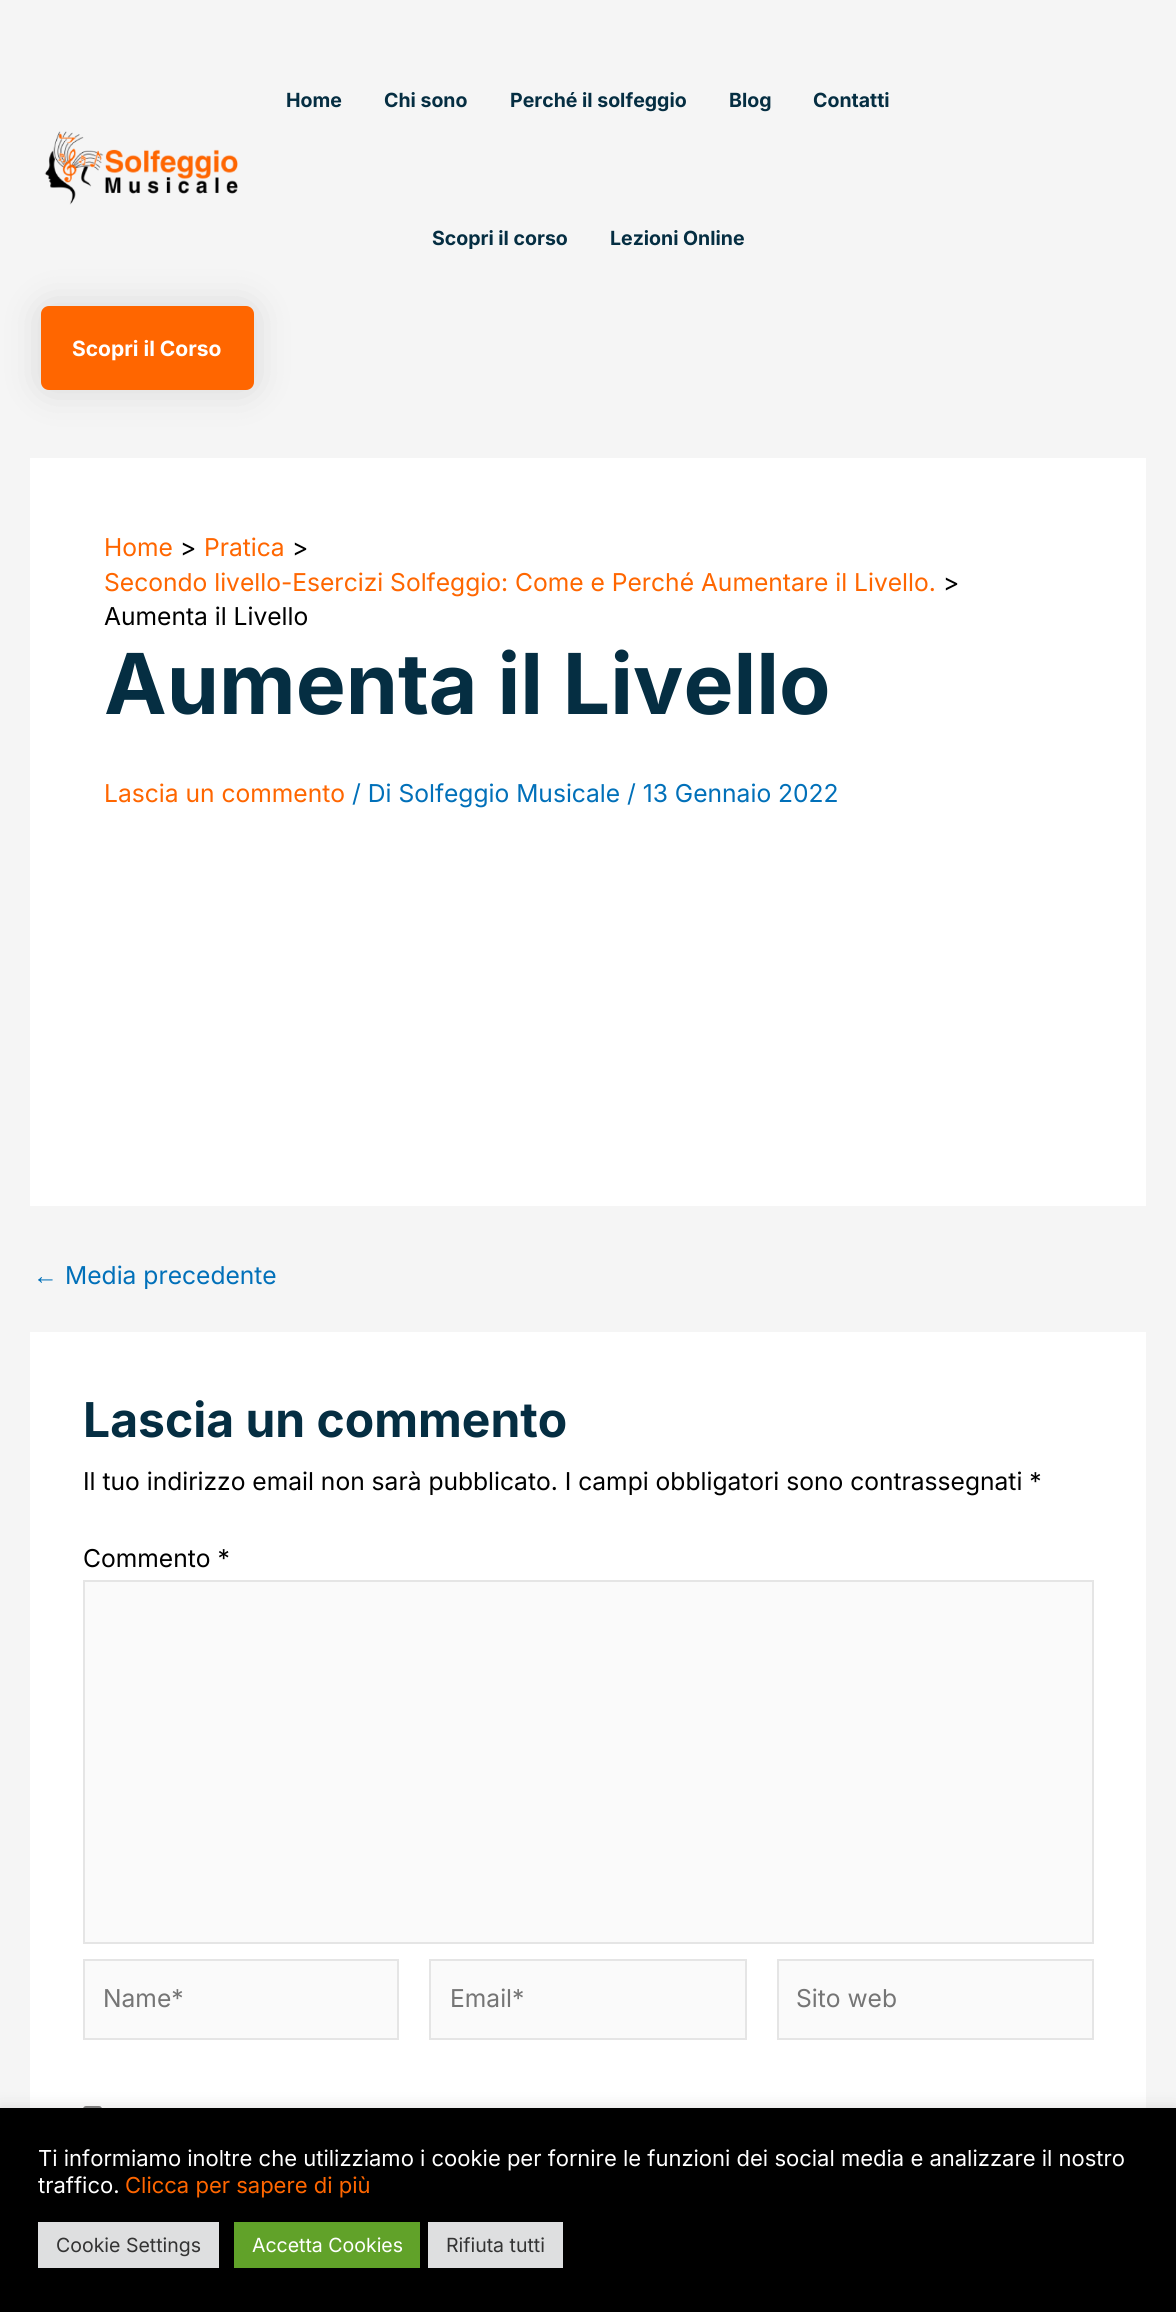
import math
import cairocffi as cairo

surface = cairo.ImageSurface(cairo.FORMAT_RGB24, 1176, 2312)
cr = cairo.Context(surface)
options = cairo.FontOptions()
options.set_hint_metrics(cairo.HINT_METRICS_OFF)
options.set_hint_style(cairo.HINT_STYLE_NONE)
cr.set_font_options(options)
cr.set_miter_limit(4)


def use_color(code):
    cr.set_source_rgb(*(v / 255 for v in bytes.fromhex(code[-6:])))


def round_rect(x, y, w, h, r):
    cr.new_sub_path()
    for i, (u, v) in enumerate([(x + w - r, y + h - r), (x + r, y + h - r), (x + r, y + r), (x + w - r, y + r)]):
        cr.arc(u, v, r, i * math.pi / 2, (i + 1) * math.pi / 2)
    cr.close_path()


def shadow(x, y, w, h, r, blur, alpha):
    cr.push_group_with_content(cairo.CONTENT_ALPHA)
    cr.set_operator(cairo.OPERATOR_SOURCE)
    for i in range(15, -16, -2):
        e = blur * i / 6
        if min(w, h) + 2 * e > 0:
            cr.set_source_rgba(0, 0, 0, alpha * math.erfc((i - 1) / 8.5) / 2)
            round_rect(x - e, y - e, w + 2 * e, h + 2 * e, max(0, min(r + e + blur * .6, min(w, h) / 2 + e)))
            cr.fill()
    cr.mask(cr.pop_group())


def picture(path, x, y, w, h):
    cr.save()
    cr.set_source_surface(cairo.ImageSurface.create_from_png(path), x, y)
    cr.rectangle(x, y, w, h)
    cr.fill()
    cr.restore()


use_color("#f5f5f5")
cr.paint()
picture("img1.png", 44, 131, 194, 74)
cr.select_font_face("Inter", cairo.FONT_SLANT_NORMAL, cairo.FONT_WEIGHT_BOLD)
cr.set_font_size(19.5)
use_color("#052e42")
cr.move_to(286, 107)
cr.show_text("Home")
cr.move_to(384, 107)
cr.show_text("Chi sono")
cr.move_to(510, 107)
cr.show_text("Perché il solfeggio")
cr.move_to(729, 107)
cr.show_text("Blog")
cr.move_to(813, 107)
cr.show_text("Contatti")
cr.move_to(432, 245)
cr.show_text("Scopri il corso")
cr.move_to(610, 245)
cr.show_text("Lezioni Online")
use_color("#000000")
shadow(41, 306, 213, 84, 8, 20, 0.12)
use_color("#ff6600")
round_rect(42, 307, 211, 82, 7)
cr.fill_preserve()
cr.stroke()
cr.set_font_size(21)
use_color("#ffffff")
cr.move_to(72, 356)
cr.show_text("Scopri il Corso")
cr.rectangle(30, 458, 1116, 748)
cr.fill()
cr.select_font_face("Inter")
cr.set_font_size(24.6)
use_color("#ff6600")
cr.move_to(104, 556)
cr.show_text("Home")
use_color("#000000")
cr.move_to(180, 556)
cr.show_text(">")
use_color("#ff6600")
cr.move_to(204, 556)
cr.show_text("Pratica")
use_color("#000000")
cr.move_to(292, 556)
cr.show_text(">")
use_color("#ff6600")
cr.move_to(104, 591)
cr.show_text("Secondo livello-Esercizi Solfeggio: Come e Perché Aumentare il Livello.")
use_color("#000000")
cr.move_to(943, 591)
cr.show_text(">")
cr.move_to(104, 625)
cr.show_text("Aumenta il Livello")
cr.select_font_face("Inter", cairo.FONT_SLANT_NORMAL, cairo.FONT_WEIGHT_BOLD)
cr.set_font_size(84)
use_color("#052e42")
cr.move_to(104, 714)
cr.show_text("Aumenta il Livello")
cr.select_font_face("Inter")
cr.set_font_size(24.6)
use_color("#ff6600")
cr.move_to(104, 802)
cr.show_text("Lascia un commento")
use_color("#0170b9")
cr.move_to(352, 802)
cr.show_text("/ Di Solfeggio Musicale / 13 Gennaio 2022")
cr.select_font_face("Liberation Sans")
cr.move_to(33, 1284)
cr.show_text("←")
cr.select_font_face("Inter")
cr.move_to(65, 1284)
cr.show_text("Media precedente")
use_color("#ffffff")
cr.rectangle(30, 1332, 1116, 776)
cr.fill()
cr.select_font_face("Inter", cairo.FONT_SLANT_NORMAL, cairo.FONT_WEIGHT_BOLD)
cr.set_font_size(48)
use_color("#052e42")
cr.move_to(83, 1437)
cr.show_text("Lascia un commento")
cr.select_font_face("Inter")
cr.set_font_size(24.6)
use_color("#000000")
cr.move_to(83, 1490)
cr.show_text("Il tuo indirizzo email non sarà pubblicato. I campi obbligatori sono contrassegnati *")
cr.move_to(83, 1567)
cr.show_text("Commento *")
use_color("#fafafa")
cr.rectangle(84, 1581, 1009, 362)
cr.fill_preserve()
use_color("#e5e5e5")
cr.stroke()
use_color("#fafafa")
cr.rectangle(84, 1960, 314, 79)
cr.fill_preserve()
use_color("#e5e5e5")
cr.stroke()
use_color("#757575")
cr.move_to(103, 2007)
cr.show_text("Name*")
use_color("#fafafa")
cr.rectangle(430, 1960, 316, 79)
cr.fill_preserve()
use_color("#e5e5e5")
cr.stroke()
use_color("#757575")
cr.move_to(450, 2007)
cr.show_text("Email*")
use_color("#fafafa")
cr.rectangle(778, 1960, 315, 79)
cr.fill_preserve()
use_color("#e5e5e5")
cr.stroke()
use_color("#757575")
cr.move_to(796, 2007)
cr.show_text("Sito web")
round_rect(84, 2107, 17, 18, 2)
use_color("#767676")
cr.stroke()
use_color("#acabab")
shadow(0, 2106, 1176, 206, 0, 7.5, 0.3)
use_color("#000000")
cr.rectangle(0, 2108, 1176, 204)
cr.fill()
cr.set_font_size(22)
use_color("#ffffff")
cr.move_to(38, 2166)
cr.show_text("Ti informiamo inoltre che utilizziamo i cookie per fornire le funzioni dei social media e analizzare il nostro")
cr.move_to(38, 2193)
cr.show_text("traffico.")
use_color("#ff6600")
cr.move_to(125, 2193)
cr.show_text("Clicca per sapere di più")
use_color("#dedfe0")
cr.rectangle(38, 2222, 181, 46)
cr.fill()
cr.set_font_size(19.5)
use_color("#333333")
cr.move_to(56, 2252)
cr.show_text("Cookie Settings")
use_color("#61a229")
cr.rectangle(234, 2222, 186, 46)
cr.fill()
use_color("#ffffff")
cr.move_to(252, 2252)
cr.show_text("Accetta Cookies")
use_color("#dedfe0")
cr.rectangle(428, 2222, 135, 46)
cr.fill()
use_color("#333333")
cr.move_to(446, 2252)
cr.show_text("Rifiuta tutti")
surface.write_to_png("result.png")
